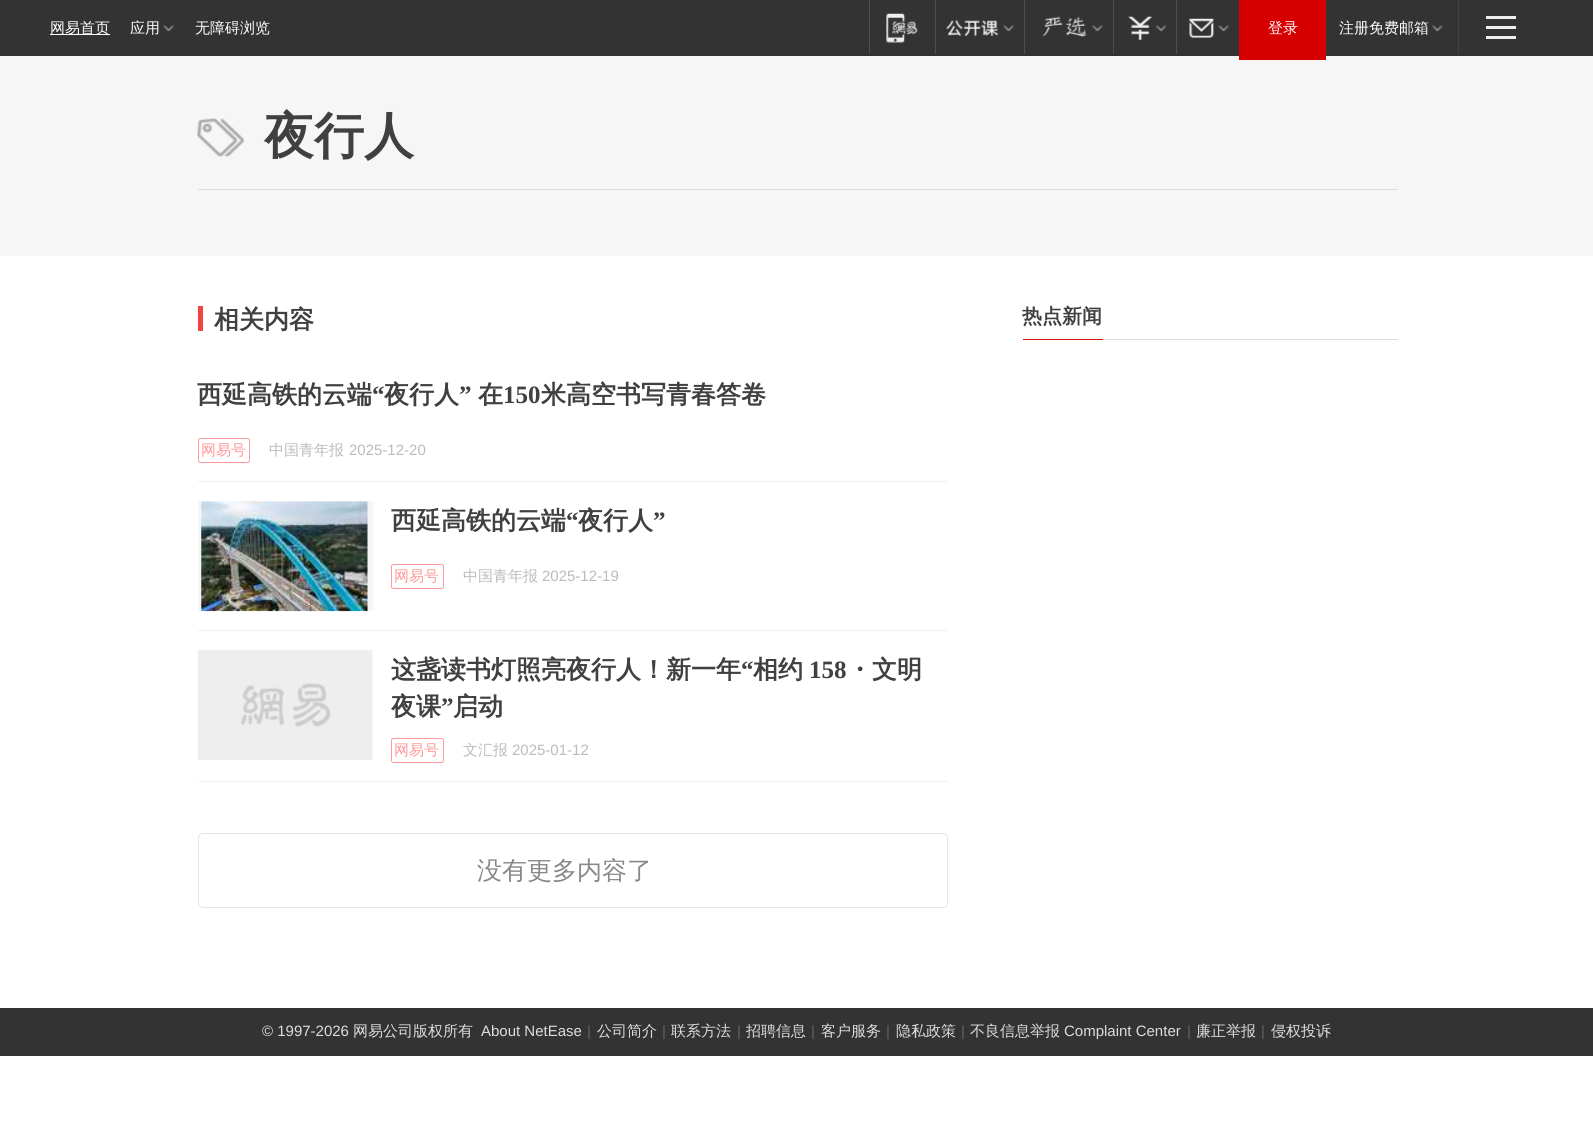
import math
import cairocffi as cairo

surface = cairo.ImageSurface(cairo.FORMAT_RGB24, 1593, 1135)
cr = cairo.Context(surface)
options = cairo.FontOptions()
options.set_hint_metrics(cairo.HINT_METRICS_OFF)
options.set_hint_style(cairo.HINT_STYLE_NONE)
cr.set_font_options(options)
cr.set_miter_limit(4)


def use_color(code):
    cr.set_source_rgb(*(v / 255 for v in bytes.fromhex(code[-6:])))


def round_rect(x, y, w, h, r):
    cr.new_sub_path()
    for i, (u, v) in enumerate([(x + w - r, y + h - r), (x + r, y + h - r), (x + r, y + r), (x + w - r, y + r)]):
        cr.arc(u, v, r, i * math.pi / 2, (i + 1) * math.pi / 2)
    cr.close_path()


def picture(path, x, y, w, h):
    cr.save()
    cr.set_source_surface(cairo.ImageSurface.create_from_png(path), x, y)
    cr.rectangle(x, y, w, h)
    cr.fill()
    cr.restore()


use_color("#ffffff")
cr.paint()
use_color("#333333")
cr.rectangle(0, 0, 1593, 56)
cr.fill()
use_color("#ffffff")
cr.rectangle(50, 34, 60, 1)
cr.fill()
cr.select_font_face("WenQuanYi Zen Hei Medium")
cr.set_font_size(15)
cr.move_to(50, 33)
cr.show_text("网易首页")
cr.move_to(130, 33)
cr.show_text("应用")
picture("img1.png", 163, 25, 12, 7)
cr.move_to(195, 33)
cr.show_text("无障碍浏览")
use_color("#4d4d4d")
cr.rectangle(869, 0, 1, 54)
cr.fill()
picture("img2.png", 886, 13, 32, 30)
cr.rectangle(935, 0, 1, 54)
cr.fill()
picture("img3.png", 946, 20, 53, 17)
picture("img4.png", 1003, 25, 12, 7)
cr.rectangle(1024, 0, 1, 54)
cr.fill()
picture("img5.png", 1042, 16, 45, 21)
picture("img6.png", 1092, 25, 11, 7)
cr.rectangle(1113, 0, 1, 54)
cr.fill()
picture("img7.png", 1128, 16, 25, 24)
picture("img8.png", 1155, 25, 12, 7)
cr.rectangle(1176, 0, 1, 54)
cr.fill()
picture("img9.png", 1189, 18, 26, 20)
picture("img4.png", 1218, 25, 12, 7)
use_color("#f6f6f6")
cr.rectangle(0, 56, 1593, 200)
cr.fill()
use_color("#d60000")
cr.rectangle(1239, 0, 87, 60)
cr.fill()
use_color("#ffffff")
cr.move_to(1268, 33)
cr.show_text("登录")
cr.move_to(1339, 33)
cr.show_text("注册免费邮箱")
picture("img6.png", 1432, 25, 11, 7)
use_color("#444444")
cr.rectangle(1458, 0, 1, 54)
cr.fill()
use_color("#efefef")
cr.rectangle(1486, 16, 30, 3)
cr.fill()
cr.rectangle(1486, 26, 30, 3)
cr.fill()
cr.rectangle(1486, 36, 30, 3)
cr.fill()
picture("img10.png", 197, 118, 47, 39)
use_color("#dddddd")
cr.rectangle(198, 189, 1200, 1)
cr.fill()
cr.select_font_face("WenQuanYi Zen Hei", cairo.FONT_SLANT_NORMAL, cairo.FONT_WEIGHT_BOLD)
cr.set_font_size(50)
use_color("#404040")
cr.move_to(264, 153)
cr.show_text("夜行人")
use_color("#f34540")
cr.rectangle(198, 306, 5, 25)
cr.fill()
cr.set_font_size(25)
use_color("#404040")
cr.move_to(214, 328)
cr.show_text("相关内容")
use_color("#f0f0f0")
cr.rectangle(198, 481, 750, 1)
cr.fill()
use_color("#404040")
cr.move_to(197, 403)
cr.show_text("西延高铁的云端")
cr.select_font_face("Liberation Serif", cairo.FONT_SLANT_NORMAL, cairo.FONT_WEIGHT_BOLD)
cr.move_to(372, 403)
cr.show_text("“")
cr.select_font_face("WenQuanYi Zen Hei", cairo.FONT_SLANT_NORMAL, cairo.FONT_WEIGHT_BOLD)
cr.move_to(384, 403)
cr.show_text("夜行人")
cr.select_font_face("Liberation Serif", cairo.FONT_SLANT_NORMAL, cairo.FONT_WEIGHT_BOLD)
cr.move_to(459, 403)
cr.show_text("”")
cr.select_font_face("WenQuanYi Zen Hei", cairo.FONT_SLANT_NORMAL, cairo.FONT_WEIGHT_BOLD)
cr.move_to(478, 403)
cr.show_text("在")
cr.select_font_face("Liberation Serif", cairo.FONT_SLANT_NORMAL, cairo.FONT_WEIGHT_BOLD)
cr.move_to(503, 403)
cr.show_text("150")
cr.select_font_face("WenQuanYi Zen Hei", cairo.FONT_SLANT_NORMAL, cairo.FONT_WEIGHT_BOLD)
cr.move_to(541, 403)
cr.show_text("米高空书写青春答卷")
round_rect(198.5, 438.5, 51, 24, 2)
use_color("#ff9999")
cr.set_line_width(1)
cr.stroke()
cr.select_font_face("WenQuanYi Zen Hei Medium")
cr.set_font_size(15)
cr.move_to(201, 455)
cr.show_text("网易号")
use_color("#bbbbbb")
cr.move_to(269, 455)
cr.show_text("中国青年报")
cr.select_font_face("Liberation Sans")
cr.move_to(349, 455)
cr.show_text("2025-12-20")
use_color("#f0f0f0")
cr.rectangle(198, 630, 750, 1)
cr.fill()
use_color("#f6f6f6")
cr.rectangle(198, 501, 175, 110)
cr.fill()
picture("img11.png", 201, 501, 167, 111)
cr.select_font_face("WenQuanYi Zen Hei", cairo.FONT_SLANT_NORMAL, cairo.FONT_WEIGHT_BOLD)
cr.set_font_size(25)
use_color("#404040")
cr.move_to(391, 529)
cr.show_text("西延高铁的云端")
cr.select_font_face("Liberation Serif", cairo.FONT_SLANT_NORMAL, cairo.FONT_WEIGHT_BOLD)
cr.move_to(566, 529)
cr.show_text("“")
cr.select_font_face("WenQuanYi Zen Hei", cairo.FONT_SLANT_NORMAL, cairo.FONT_WEIGHT_BOLD)
cr.move_to(578, 529)
cr.show_text("夜行人")
cr.select_font_face("Liberation Serif", cairo.FONT_SLANT_NORMAL, cairo.FONT_WEIGHT_BOLD)
cr.move_to(653, 529)
cr.show_text("”")
round_rect(391.5, 564.5, 52, 24, 2)
use_color("#ff9999")
cr.stroke()
cr.select_font_face("WenQuanYi Zen Hei Medium")
cr.set_font_size(15)
cr.move_to(394, 581)
cr.show_text("网易号")
use_color("#bbbbbb")
cr.move_to(463, 581)
cr.show_text("中国青年报")
cr.select_font_face("Liberation Sans")
cr.move_to(542, 581)
cr.show_text("2025-12-19")
use_color("#f0f0f0")
cr.rectangle(198, 781, 750, 1)
cr.fill()
use_color("#f6f6f6")
cr.rectangle(372, 650, 1, 110)
cr.fill()
picture("img12.png", 197, 650, 175, 110)
cr.select_font_face("WenQuanYi Zen Hei", cairo.FONT_SLANT_NORMAL, cairo.FONT_WEIGHT_BOLD)
cr.set_font_size(25)
use_color("#404040")
cr.move_to(391, 678)
cr.show_text("这盏读书灯照亮夜行人！新一年")
cr.select_font_face("Liberation Serif", cairo.FONT_SLANT_NORMAL, cairo.FONT_WEIGHT_BOLD)
cr.move_to(741, 678)
cr.show_text("“")
cr.select_font_face("WenQuanYi Zen Hei", cairo.FONT_SLANT_NORMAL, cairo.FONT_WEIGHT_BOLD)
cr.move_to(753, 678)
cr.show_text("相约")
cr.select_font_face("Liberation Serif", cairo.FONT_SLANT_NORMAL, cairo.FONT_WEIGHT_BOLD)
cr.move_to(809, 678)
cr.show_text("158")
cr.select_font_face("WenQuanYi Zen Hei", cairo.FONT_SLANT_NORMAL, cairo.FONT_WEIGHT_BOLD)
cr.move_to(847, 678)
cr.show_text("・文明")
cr.move_to(391, 715)
cr.show_text("夜课")
cr.select_font_face("Liberation Serif", cairo.FONT_SLANT_NORMAL, cairo.FONT_WEIGHT_BOLD)
cr.move_to(441, 715)
cr.show_text("”")
cr.select_font_face("WenQuanYi Zen Hei", cairo.FONT_SLANT_NORMAL, cairo.FONT_WEIGHT_BOLD)
cr.move_to(453, 715)
cr.show_text("启动")
round_rect(391.5, 738.5, 52, 24, 2)
use_color("#ff9999")
cr.stroke()
cr.select_font_face("WenQuanYi Zen Hei Medium")
cr.set_font_size(15)
cr.move_to(394, 755)
cr.show_text("网易号")
use_color("#bbbbbb")
cr.move_to(463, 755)
cr.show_text("文汇报")
cr.select_font_face("Liberation Sans")
cr.move_to(512, 755)
cr.show_text("2025-01-12")
round_rect(198.5, 833.5, 749, 74, 4.5)
use_color("#e5e5e5")
cr.stroke()
cr.select_font_face("WenQuanYi Zen Hei Medium")
cr.set_font_size(25)
use_color("#888888")
cr.move_to(477, 879)
cr.show_text("没有更多内容了")
use_color("#dddddd")
cr.rectangle(1103, 339, 295, 1)
cr.fill()
cr.select_font_face("WenQuanYi Zen Hei", cairo.FONT_SLANT_NORMAL, cairo.FONT_WEIGHT_BOLD)
cr.set_font_size(20)
use_color("#404040")
cr.move_to(1022, 323)
cr.show_text("热点新闻")
use_color("#db1011")
cr.rectangle(1023, 339, 80, 1)
cr.fill()
use_color("#333333")
cr.rectangle(0, 1008, 1593, 48)
cr.fill()
cr.select_font_face("Liberation Sans")
cr.set_font_size(15)
use_color("#dddddd")
cr.move_to(262, 1036)
cr.show_text("© 1997-2026")
cr.select_font_face("WenQuanYi Zen Hei Medium")
cr.move_to(353, 1036)
cr.show_text("网易公司版权所有")
cr.select_font_face("Liberation Sans")
cr.move_to(481, 1036)
cr.show_text("About NetEase")
use_color("#616161")
cr.move_to(587, 1036)
cr.show_text("|")
cr.select_font_face("WenQuanYi Zen Hei Medium")
use_color("#dddddd")
cr.move_to(597, 1036)
cr.show_text("公司简介")
cr.select_font_face("Liberation Sans")
use_color("#616161")
cr.move_to(662, 1036)
cr.show_text("|")
cr.select_font_face("WenQuanYi Zen Hei Medium")
use_color("#dddddd")
cr.move_to(671, 1036)
cr.show_text("联系方法")
cr.select_font_face("Liberation Sans")
use_color("#616161")
cr.move_to(737, 1036)
cr.show_text("|")
cr.select_font_face("WenQuanYi Zen Hei Medium")
use_color("#dddddd")
cr.move_to(746, 1036)
cr.show_text("招聘信息")
cr.select_font_face("Liberation Sans")
use_color("#616161")
cr.move_to(811, 1036)
cr.show_text("|")
cr.select_font_face("WenQuanYi Zen Hei Medium")
use_color("#dddddd")
cr.move_to(821, 1036)
cr.show_text("客户服务")
cr.select_font_face("Liberation Sans")
use_color("#616161")
cr.move_to(886, 1036)
cr.show_text("|")
cr.select_font_face("WenQuanYi Zen Hei Medium")
use_color("#dddddd")
cr.move_to(896, 1036)
cr.show_text("隐私政策")
cr.select_font_face("Liberation Sans")
use_color("#616161")
cr.move_to(961, 1036)
cr.show_text("|")
cr.select_font_face("WenQuanYi Zen Hei Medium")
use_color("#dddddd")
cr.move_to(970, 1036)
cr.show_text("不良信息举报")
cr.select_font_face("Liberation Sans")
cr.move_to(1064, 1036)
cr.show_text("Complaint Center")
use_color("#616161")
cr.move_to(1187, 1036)
cr.show_text("|")
cr.select_font_face("WenQuanYi Zen Hei Medium")
use_color("#dddddd")
cr.move_to(1196, 1036)
cr.show_text("廉正举报")
cr.select_font_face("Liberation Sans")
use_color("#616161")
cr.move_to(1261, 1036)
cr.show_text("|")
cr.select_font_face("WenQuanYi Zen Hei Medium")
use_color("#dddddd")
cr.move_to(1271, 1036)
cr.show_text("侵权投诉")
surface.write_to_png("result.png")
